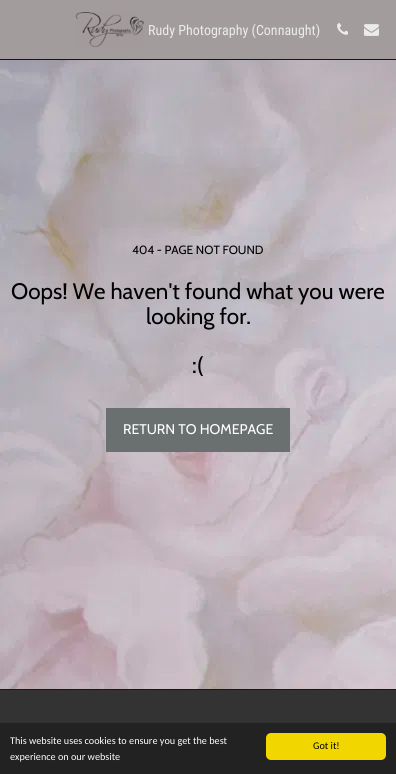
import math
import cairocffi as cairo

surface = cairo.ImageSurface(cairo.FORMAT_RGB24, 396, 774)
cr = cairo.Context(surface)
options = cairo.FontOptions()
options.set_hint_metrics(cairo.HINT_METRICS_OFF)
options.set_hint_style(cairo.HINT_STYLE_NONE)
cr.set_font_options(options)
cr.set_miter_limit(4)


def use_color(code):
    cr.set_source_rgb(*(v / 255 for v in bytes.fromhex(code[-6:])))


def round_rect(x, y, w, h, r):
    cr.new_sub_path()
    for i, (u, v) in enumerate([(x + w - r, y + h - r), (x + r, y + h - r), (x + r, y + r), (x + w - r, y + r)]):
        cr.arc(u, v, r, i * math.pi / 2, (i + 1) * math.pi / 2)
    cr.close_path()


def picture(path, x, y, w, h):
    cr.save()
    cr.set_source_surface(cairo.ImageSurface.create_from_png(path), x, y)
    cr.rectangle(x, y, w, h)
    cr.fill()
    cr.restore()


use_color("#ffffff")
cr.paint()
picture("img1.png", 0, 60, 396, 629)
use_color("#a39c9c")
cr.rectangle(0, 0, 396, 59)
cr.fill()
use_color("#151616")
cr.rectangle(0, 59, 396, 1)
cr.fill()
picture("img2.png", 75, 12, 69, 35)
cr.select_font_face("Roboto Condensed")
cr.set_font_size(14)
use_color("#ebebeb")
cr.move_to(148, 35)
cr.show_text("Rudy Photography (Connaught)")
picture("img3.png", 337, 23, 11, 12)
picture("img4.png", 364, 24, 15, 12)
cr.select_font_face("Cabin")
cr.set_font_size(11.9)
use_color("#000000")
cr.move_to(132, 254)
cr.show_text("404 - PAGE NOT FOUND")
cr.set_font_size(22.4)
cr.move_to(11, 299)
cr.show_text("Oops! We haven't found what you were")
cr.move_to(146, 324)
cr.show_text("looking for.")
cr.move_to(192, 373)
cr.show_text(":(")
use_color("#6a6f70")
cr.rectangle(106, 408, 184, 44)
cr.fill()
cr.set_font_size(14)
use_color("#ffffff")
cr.move_to(123, 434)
cr.show_text("RETURN TO HOMEPAGE")
use_color("#333333")
cr.rectangle(0, 690, 396, 33)
cr.fill()
use_color("#151616")
cr.rectangle(0, 689, 396, 1)
cr.fill()
use_color("#222222")
cr.rectangle(0, 723, 396, 51)
cr.fill()
cr.select_font_face("Carlito")
cr.set_font_size(10.2)
use_color("#ffffff")
cr.move_to(10, 744)
cr.show_text("This website uses cookies to ensure you get the best")
cr.move_to(10, 760)
cr.show_text("experience on our website")
use_color("#f1d600")
round_rect(266, 733, 120, 27, 5)
cr.fill()
use_color("#000000")
cr.move_to(313, 749)
cr.show_text("Got it!")
surface.write_to_png("result.png")
